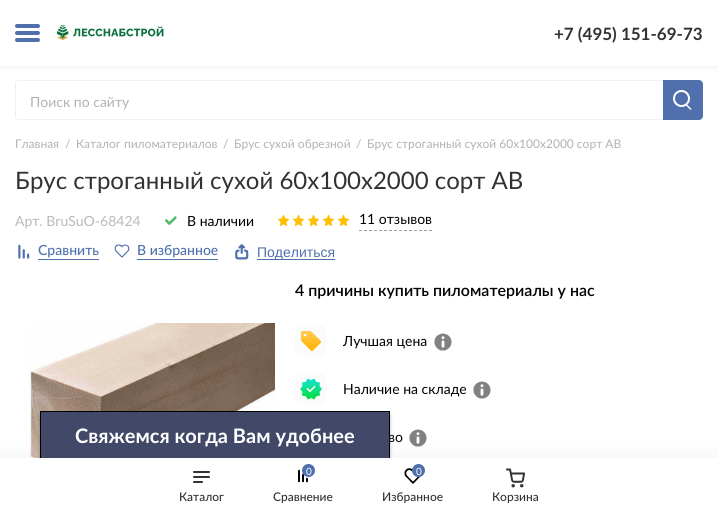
import math
import cairocffi as cairo

surface = cairo.ImageSurface(cairo.FORMAT_RGB24, 718, 514)
cr = cairo.Context(surface)
options = cairo.FontOptions()
options.set_hint_metrics(cairo.HINT_METRICS_OFF)
options.set_hint_style(cairo.HINT_STYLE_NONE)
cr.set_font_options(options)
cr.set_miter_limit(4)


def use_color(code):
    cr.set_source_rgb(*(v / 255 for v in bytes.fromhex(code[-6:])))


def round_rect(x, y, w, h, r):
    cr.new_sub_path()
    for i, (u, v) in enumerate([(x + w - r, y + h - r), (x + r, y + h - r), (x + r, y + r), (x + w - r, y + r)]):
        cr.arc(u, v, r, i * math.pi / 2, (i + 1) * math.pi / 2)
    cr.close_path()


def shadow(x, y, w, h, r, blur, alpha):
    cr.push_group_with_content(cairo.CONTENT_ALPHA)
    cr.set_operator(cairo.OPERATOR_SOURCE)
    for i in range(15, -16, -2):
        e = blur * i / 6
        if min(w, h) + 2 * e > 0:
            cr.set_source_rgba(0, 0, 0, alpha * math.erfc((i - 1) / 8.5) / 2)
            round_rect(x - e, y - e, w + 2 * e, h + 2 * e, max(0, min(r + e + blur * .6, min(w, h) / 2 + e)))
            cr.fill()
    cr.mask(cr.pop_group())


def picture(path, x, y, w, h):
    cr.save()
    cr.set_source_surface(cairo.ImageSurface.create_from_png(path), x, y)
    cr.rectangle(x, y, w, h)
    cr.fill()
    cr.restore()


use_color("#ffffff")
cr.paint()
use_color("#19293f")
shadow(0, 1, 718, 66, 0, 2.5, 0.08)
use_color("#ffffff")
cr.rectangle(0, 0, 718, 66)
cr.fill()
use_color("#4f70ad")
round_rect(15, 24, 25, 4, 2)
cr.fill()
round_rect(15, 31, 25, 4, 2)
cr.fill()
round_rect(15, 38, 25, 4, 2)
cr.fill()
cr.select_font_face("Lato", cairo.FONT_SLANT_NORMAL, cairo.FONT_WEIGHT_BOLD)
cr.set_font_size(17)
use_color("#323232")
cr.move_to(554, 40)
cr.show_text("+7 (495) 151-69-73")
picture("img1.png", 57, 25, 107, 15)
picture("img10.png", 29, 323, 246, 135)
picture("img12.png", 409, 429, 18, 18)
use_color("#000000")
shadow(40, 415, 350, 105, 0, 2, 0.25)
use_color("#000000")
cr.rectangle(40, 411, 350, 1)
cr.fill()
cr.rectangle(389, 411, 1, 47)
cr.fill()
cr.rectangle(40, 411, 1, 47)
cr.fill()
cr.select_font_face("Lato")
cr.set_font_size(14)
cr.move_to(388, 442)
cr.show_text("во")
use_color("#424867")
cr.rectangle(41, 412, 348, 46)
cr.fill()
use_color("#333333")
shadow(0, 462, 718, 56, 0, 16, 0.08)
use_color("#ffffff")
cr.rectangle(0, 458, 718, 56)
cr.fill()
use_color("#323232")
round_rect(193, 471, 17, 2, 1)
cr.fill()
round_rect(193, 476, 17, 2, 1)
cr.fill()
round_rect(193, 481, 10, 2, 1)
cr.fill()
cr.select_font_face("Lato Medium")
cr.set_font_size(12)
cr.move_to(179, 501)
cr.show_text("Каталог")
picture("img2.png", 298, 469, 10, 14)
use_color("#4f70ad")
cr.arc(308.5, 470.5, 6.5, 0, 2 * math.pi)
cr.fill()
cr.select_font_face("Lato")
cr.set_font_size(10)
use_color("#ffffff")
cr.move_to(306, 475)
cr.show_text("0")
cr.select_font_face("Lato Medium")
cr.set_font_size(12)
use_color("#323232")
cr.move_to(273, 501)
cr.show_text("Сравнение")
picture("img3.png", 404, 468, 17, 16)
use_color("#4f70ad")
cr.arc(418.5, 470.5, 6.5, 0, 2 * math.pi)
cr.fill()
cr.select_font_face("Lato")
cr.set_font_size(10)
use_color("#ffffff")
cr.move_to(416, 475)
cr.show_text("0")
cr.select_font_face("Lato Medium")
cr.set_font_size(12)
use_color("#323232")
cr.move_to(382, 501)
cr.show_text("Избранное")
picture("img4.png", 506, 468, 19, 20)
cr.move_to(492, 501)
cr.show_text("Корзина")
use_color("#f0f0f0")
cr.set_fill_rule(cairo.FILL_RULE_EVEN_ODD)
cr.new_path()
cr.move_to(19, 80)
cr.line_to(663, 80)
cr.line_to(663, 120)
cr.line_to(19, 120)
cr.curve_to(17, 120, 15, 118, 15, 116)
cr.line_to(15, 84)
cr.curve_to(15, 82, 17, 80, 19, 80)
cr.close_path()
cr.move_to(19, 81)
cr.line_to(663, 81)
cr.line_to(663, 119)
cr.line_to(19, 119)
cr.curve_to(17, 119, 16, 118, 16, 116)
cr.line_to(16, 84)
cr.curve_to(16, 82, 17, 81, 19, 81)
cr.close_path()
cr.fill()
cr.select_font_face("Lato")
cr.set_font_size(14)
use_color("#b1b2b3")
cr.move_to(30, 107)
cr.show_text("Поиск по сайту")
use_color("#4f70ad")
cr.new_path()
cr.move_to(663, 80)
cr.line_to(699, 80)
cr.curve_to(701, 80, 703, 82, 703, 84)
cr.line_to(703, 116)
cr.curve_to(703, 118, 701, 120, 699, 120)
cr.line_to(663, 120)
cr.close_path()
cr.fill()
cr.arc(681.5, 98.5, 7.5, 0, 2 * math.pi)
use_color("#ffffff")
cr.stroke()
cr.set_fill_rule(cairo.FILL_RULE_WINDING)
cr.new_path()
cr.move_to(686.5, 104)
cr.line_to(691.5, 109)
cr.line_to(690.5, 110)
cr.line_to(685.5, 105)
cr.close_path()
cr.fill()
cr.set_font_size(12)
use_color("#b1b2b3")
cr.move_to(15, 148)
cr.show_text("Главная")
cr.move_to(65, 148)
cr.show_text("/")
cr.move_to(76, 148)
cr.show_text("Каталог пиломатериалов")
cr.move_to(223, 148)
cr.show_text("/")
cr.move_to(234, 148)
cr.show_text("Брус сухой обрезной")
cr.move_to(356, 148)
cr.show_text("/")
cr.move_to(367, 148)
cr.show_text("Брус строганный сухой 60х100х2000 сорт AB")
cr.set_font_size(24)
use_color("#323232")
cr.move_to(15, 189)
cr.show_text("Брус строганный сухой 60х100х2000 сорт AB")
cr.set_font_size(14)
use_color("#b9b9b9")
cr.move_to(15, 226)
cr.show_text("Арт. BruSuO-68424")
picture("img5.png", 165, 216, 12, 9)
use_color("#000000")
cr.move_to(187, 226)
cr.show_text("В наличии")
picture("img6.png", 278, 215, 11, 11)
picture("img6.png", 293, 215, 11, 11)
picture("img6.png", 308, 215, 11, 11)
picture("img6.png", 323, 215, 11, 11)
picture("img6.png", 338, 215, 11, 11)
cr.new_path()
cr.move_to(359, 230.5)
cr.line_to(432, 230.5)
use_color("#9e9e9d")
cr.set_line_width(1)
cr.set_dash([3, 2])
cr.stroke()
use_color("#000000")
cr.move_to(359, 224)
cr.show_text("11 отзывов")
picture("img7.png", 18, 244, 12, 15)
use_color("#4f70ad")
cr.rectangle(38, 259, 61, 1)
cr.fill()
cr.select_font_face("Lato Medium")
cr.move_to(38, 255)
cr.show_text("Сравнить")
picture("img8.png", 114, 244, 16, 14)
cr.rectangle(137, 259, 81, 1)
cr.fill()
cr.move_to(137, 255)
cr.show_text("В избранное")
picture("img9.png", 235, 244, 14, 16)
cr.select_font_face("Liberation Sans")
cr.move_to(257, 257)
cr.show_text("Поделиться")
cr.rectangle(257, 259, 78, 1)
cr.fill()
cr.select_font_face("Lato SemiBold")
cr.set_font_size(16)
use_color("#000000")
cr.move_to(295, 296)
cr.show_text("4 причины купить пиломатериалы у нас")
use_color("#fbfbfb")
round_rect(295, 325, 32, 32, 8)
cr.fill()
picture("img11.png", 301, 331, 20, 20)
cr.select_font_face("Lato")
cr.set_font_size(14)
use_color("#000000")
cr.move_to(343, 346)
cr.show_text("Лучшая цена")
picture("img12.png", 434, 333, 18, 18)
use_color("#fbfbfb")
round_rect(295, 373, 32, 32, 8)
cr.fill()
picture("img13.png", 300, 378, 22, 22)
use_color("#000000")
cr.move_to(343, 394)
cr.show_text("Наличие на складе")
picture("img12.png", 473, 381, 18, 18)
cr.select_font_face("Lato", cairo.FONT_SLANT_NORMAL, cairo.FONT_WEIGHT_BOLD)
cr.set_font_size(20)
use_color("#ffffff")
cr.move_to(75, 443)
cr.show_text("Свяжемся когда Вам удобнее")
surface.write_to_png("result.png")
